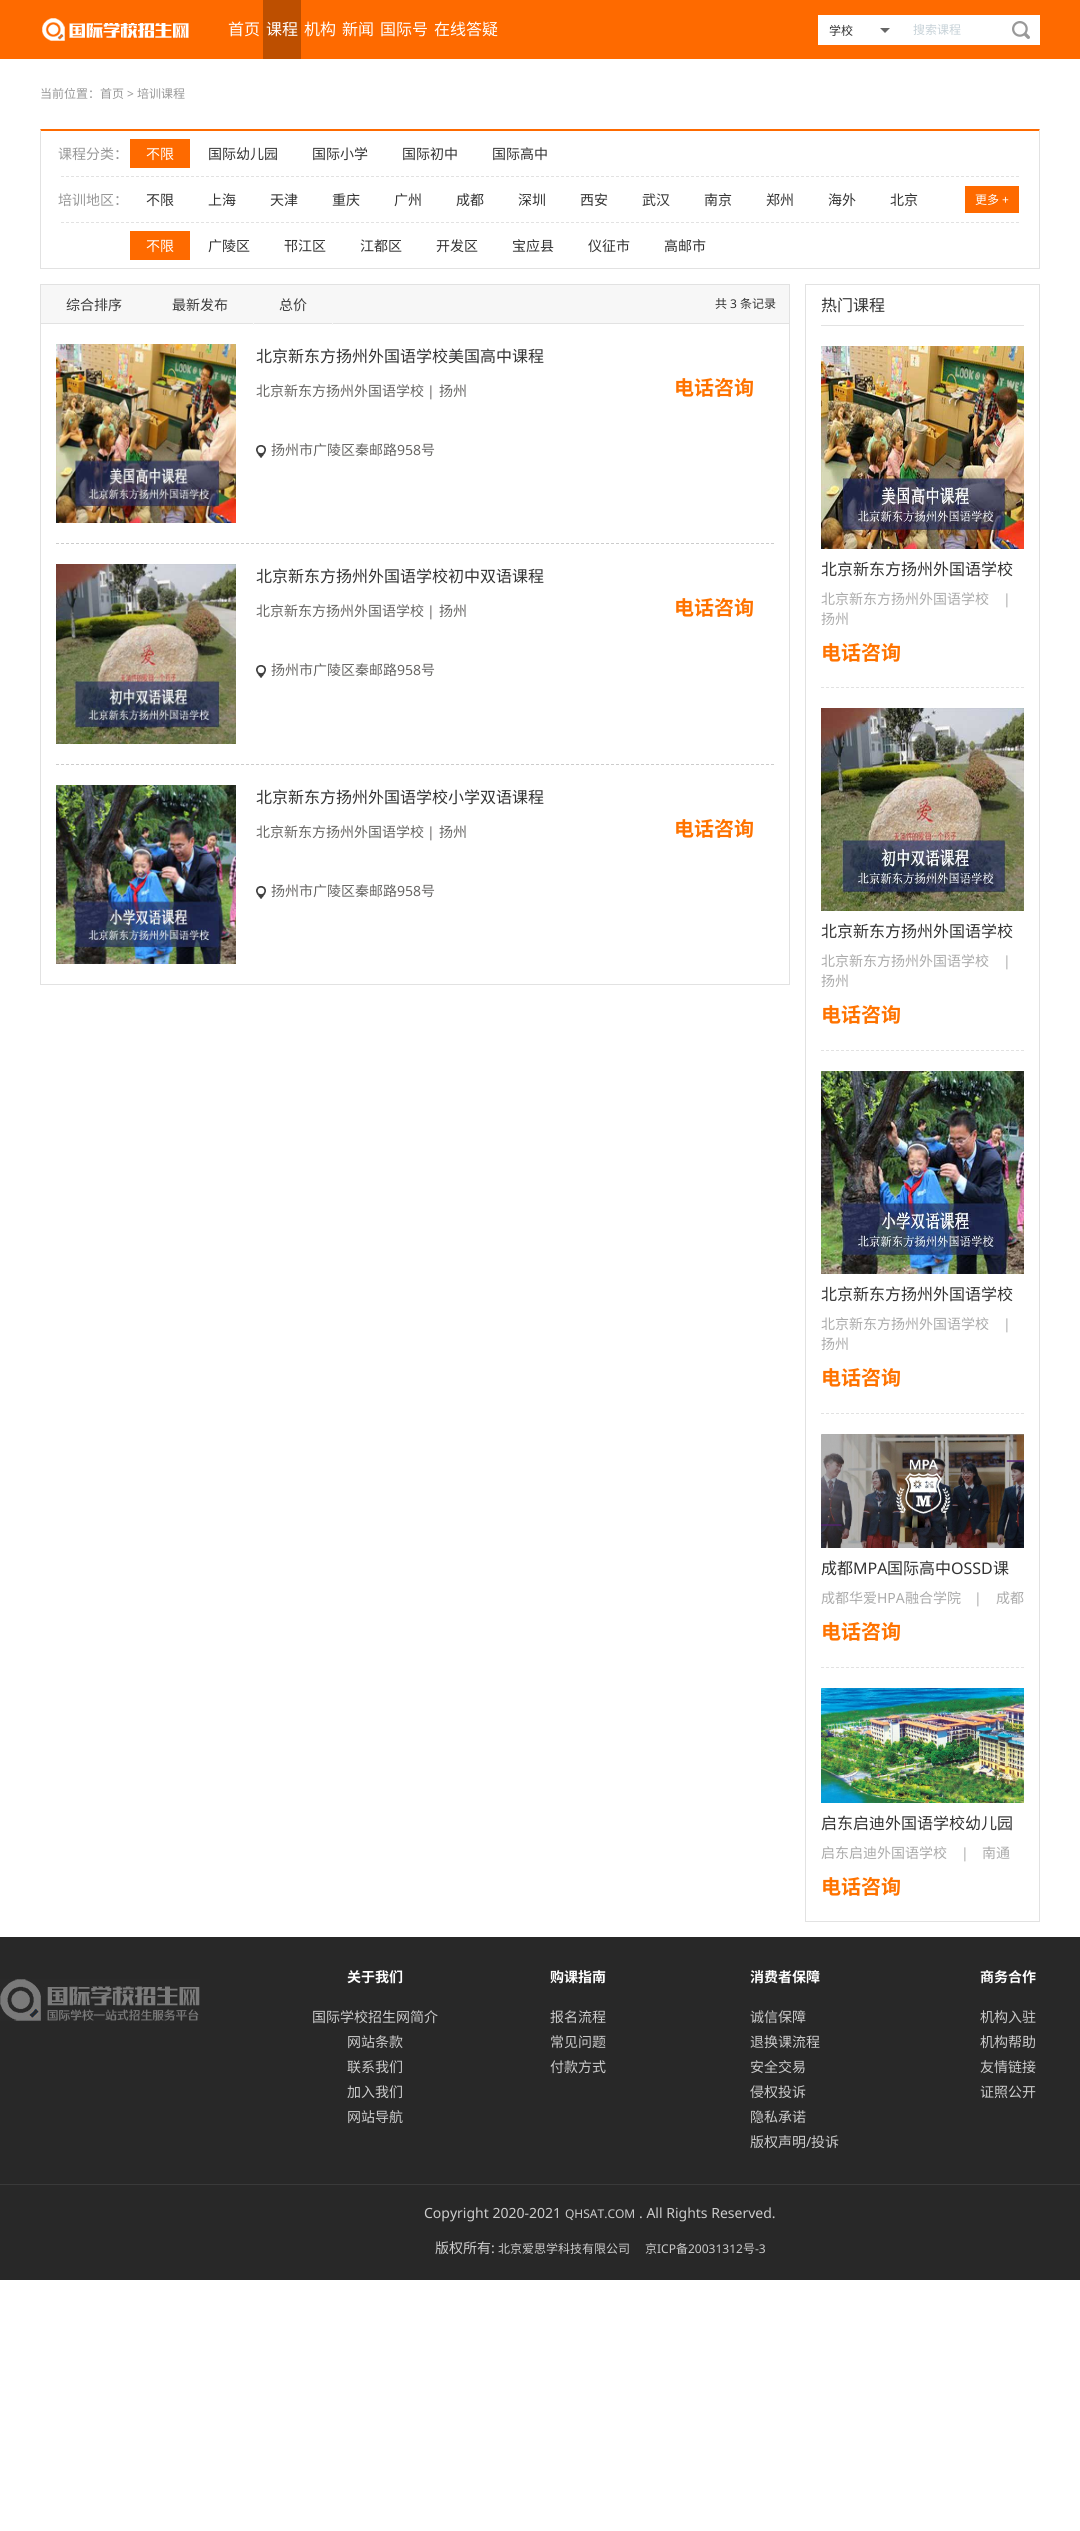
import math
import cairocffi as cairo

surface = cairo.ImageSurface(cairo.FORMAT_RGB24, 1080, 2531)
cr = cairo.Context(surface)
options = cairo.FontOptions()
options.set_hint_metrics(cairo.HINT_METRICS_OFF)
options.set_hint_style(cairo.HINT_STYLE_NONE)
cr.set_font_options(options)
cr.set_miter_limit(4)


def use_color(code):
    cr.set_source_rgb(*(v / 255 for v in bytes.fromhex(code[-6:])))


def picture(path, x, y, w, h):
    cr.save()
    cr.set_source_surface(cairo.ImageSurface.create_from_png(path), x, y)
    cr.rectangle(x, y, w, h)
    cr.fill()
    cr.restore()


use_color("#ffffff")
cr.paint()
use_color("#fe6a00")
cr.rectangle(0, 0, 1080, 59)
cr.fill()
picture("img1.png", 42, 18, 147, 23)
cr.select_font_face("Noto Sans CJK SC")
cr.set_font_size(16)
use_color("#ffffff")
cr.move_to(228, 35)
cr.show_text("首页")
use_color("#bd4f00")
cr.rectangle(263, 0, 38, 59)
cr.fill()
use_color("#ffffff")
cr.move_to(266, 35)
cr.show_text("课程")
cr.move_to(304, 35)
cr.show_text("机构")
cr.move_to(342, 35)
cr.show_text("新闻")
cr.move_to(380, 35)
cr.show_text("国际号")
cr.move_to(434, 35)
cr.show_text("在线答疑")
cr.rectangle(819, 15, 221, 30)
cr.fill()
cr.rectangle(818.5, 15.5, 82, 29)
cr.set_line_width(1)
cr.stroke()
cr.set_font_size(12)
use_color("#333333")
cr.move_to(829, 35)
cr.show_text("学校")
use_color("#666666")
cr.new_path()
cr.move_to(880, 28)
cr.line_to(890, 28)
cr.line_to(885, 33)
cr.close_path()
cr.fill()
use_color("#c7d2d8")
cr.move_to(913, 34)
cr.show_text("搜索课程")
picture("img2.png", 1012, 21, 18, 18)
use_color("#989898")
cr.move_to(40, 98)
cr.show_text("当前位置：首页")
cr.select_font_face("Noto Sans")
cr.move_to(127, 98)
cr.show_text(">")
cr.select_font_face("Noto Sans CJK SC")
cr.move_to(137, 98)
cr.show_text("培训课程")
use_color("#fe6a00")
cr.new_path()
cr.move_to(40, 129)
cr.line_to(1040, 129)
cr.line_to(1039, 131)
cr.line_to(41, 131)
cr.close_path()
cr.fill()
use_color("#e2e2e2")
cr.new_path()
cr.move_to(1040, 129)
cr.line_to(1040, 269)
cr.line_to(1039, 268)
cr.line_to(1039, 131)
cr.close_path()
cr.fill()
cr.rectangle(40, 268, 1000, 1)
cr.fill()
cr.new_path()
cr.move_to(40, 269)
cr.line_to(40, 129)
cr.line_to(41, 131)
cr.line_to(41, 268)
cr.close_path()
cr.fill()
cr.new_path()
cr.move_to(61, 176.5)
cr.line_to(1019, 176.5)
cr.set_dash([3, 2])
cr.stroke()
cr.set_font_size(14)
use_color("#989898")
cr.move_to(58, 159)
cr.show_text("课程分类：")
use_color("#fe6a00")
cr.rectangle(130, 139, 60, 29)
cr.fill()
use_color("#ffffff")
cr.move_to(146, 159)
cr.show_text("不限")
use_color("#333333")
cr.move_to(208, 159)
cr.show_text("国际幼儿园")
cr.move_to(312, 159)
cr.show_text("国际小学")
cr.move_to(402, 159)
cr.show_text("国际初中")
cr.move_to(492, 159)
cr.show_text("国际高中")
cr.new_path()
cr.move_to(61, 222.5)
cr.line_to(1019, 222.5)
use_color("#e2e2e2")
cr.stroke()
use_color("#989898")
cr.move_to(58, 205)
cr.show_text("培训地区：")
use_color("#333333")
cr.move_to(146, 205)
cr.show_text("不限")
cr.move_to(208, 205)
cr.show_text("上海")
cr.move_to(270, 205)
cr.show_text("天津")
cr.move_to(332, 205)
cr.show_text("重庆")
cr.move_to(394, 205)
cr.show_text("广州")
cr.move_to(456, 205)
cr.show_text("成都")
cr.move_to(518, 205)
cr.show_text("深圳")
cr.move_to(580, 205)
cr.show_text("西安")
cr.move_to(642, 205)
cr.show_text("武汉")
cr.move_to(704, 205)
cr.show_text("南京")
cr.move_to(766, 205)
cr.show_text("郑州")
cr.move_to(828, 205)
cr.show_text("海外")
cr.move_to(890, 205)
cr.show_text("北京")
use_color("#fe6a00")
cr.rectangle(965, 186, 54, 27)
cr.fill()
cr.set_font_size(12)
use_color("#ffffff")
cr.move_to(975, 204)
cr.show_text("更多")
cr.select_font_face("Noto Sans")
cr.move_to(1002, 204)
cr.show_text("+")
use_color("#fe6a00")
cr.rectangle(130, 231, 60, 29)
cr.fill()
cr.select_font_face("Noto Sans CJK SC")
cr.set_font_size(14)
use_color("#ffffff")
cr.move_to(146, 251)
cr.show_text("不限")
use_color("#333333")
cr.move_to(208, 251)
cr.show_text("广陵区")
cr.move_to(284, 251)
cr.show_text("邗江区")
cr.move_to(360, 251)
cr.show_text("江都区")
cr.move_to(436, 251)
cr.show_text("开发区")
cr.move_to(512, 251)
cr.show_text("宝应县")
cr.move_to(588, 251)
cr.show_text("仪征市")
cr.move_to(664, 251)
cr.show_text("高邮市")
use_color("#f7f7f7")
cr.rectangle(40.5, 284.5, 749, 39)
cr.fill_preserve()
use_color("#e2e2e2")
cr.set_dash([])
cr.stroke()
use_color("#3c3c3c")
cr.move_to(66, 310)
cr.show_text("综合排序")
cr.move_to(172, 310)
cr.show_text("最新发布")
use_color("#f7f7f7")
cr.rectangle(332, 323, 1, 2)
cr.fill()
cr.rectangle(253, 323, 1, 2)
cr.fill()
use_color("#3c3c3c")
cr.move_to(279, 310)
cr.show_text("总价")
cr.set_font_size(12)
use_color("#333333")
cr.move_to(715, 308)
cr.show_text("共")
cr.select_font_face("Noto Sans")
cr.move_to(730, 308)
cr.show_text("3")
cr.select_font_face("Noto Sans CJK SC")
cr.move_to(740, 308)
cr.show_text("条记录")
use_color("#e2e2e2")
cr.rectangle(789, 324, 1, 661)
cr.fill()
cr.rectangle(40, 984, 750, 1)
cr.fill()
cr.rectangle(40, 324, 1, 661)
cr.fill()
cr.new_path()
cr.move_to(56, 543.5)
cr.line_to(774, 543.5)
use_color("#cccccc")
cr.set_dash([3, 2])
cr.stroke()
picture("img3.png", 56, 344, 180, 179)
cr.set_font_size(16)
use_color("#333333")
cr.move_to(256, 362)
cr.show_text("北京新东方扬州外国语学校美国高中课程")
cr.set_font_size(14)
use_color("#676664")
cr.move_to(256, 396)
cr.show_text("北京新东方扬州外国语学校")
cr.select_font_face("Noto Sans")
cr.move_to(427, 396)
cr.show_text("|")
cr.select_font_face("Noto Sans CJK SC")
cr.move_to(439, 396)
cr.show_text("扬州")
picture("img4.png", 256, 445, 10, 13)
cr.move_to(271, 455)
cr.show_text("扬州市广陵区秦邮路")
cr.select_font_face("Noto Sans")
cr.move_to(397, 455)
cr.show_text("958")
cr.select_font_face("Noto Sans CJK SC")
cr.move_to(421, 455)
cr.show_text("号")
cr.select_font_face("Noto Sans CJK SC", cairo.FONT_SLANT_NORMAL, cairo.FONT_WEIGHT_BOLD)
cr.set_font_size(20)
use_color("#ff7300")
cr.move_to(674, 395)
cr.show_text("电话咨询")
cr.new_path()
cr.move_to(56, 764.5)
cr.line_to(774, 764.5)
use_color("#cccccc")
cr.stroke()
picture("img5.png", 56, 564, 180, 180)
cr.select_font_face("Noto Sans CJK SC")
cr.set_font_size(16)
use_color("#333333")
cr.move_to(256, 582)
cr.show_text("北京新东方扬州外国语学校初中双语课程")
cr.set_font_size(14)
use_color("#676664")
cr.move_to(256, 616)
cr.show_text("北京新东方扬州外国语学校")
cr.select_font_face("Noto Sans")
cr.move_to(427, 616)
cr.show_text("|")
cr.select_font_face("Noto Sans CJK SC")
cr.move_to(439, 616)
cr.show_text("扬州")
picture("img4.png", 256, 665, 10, 13)
cr.move_to(271, 675)
cr.show_text("扬州市广陵区秦邮路")
cr.select_font_face("Noto Sans")
cr.move_to(397, 675)
cr.show_text("958")
cr.select_font_face("Noto Sans CJK SC")
cr.move_to(421, 675)
cr.show_text("号")
cr.select_font_face("Noto Sans CJK SC", cairo.FONT_SLANT_NORMAL, cairo.FONT_WEIGHT_BOLD)
cr.set_font_size(20)
use_color("#ff7300")
cr.move_to(674, 615)
cr.show_text("电话咨询")
picture("img6.png", 56, 785, 180, 179)
cr.select_font_face("Noto Sans CJK SC")
cr.set_font_size(16)
use_color("#333333")
cr.move_to(256, 803)
cr.show_text("北京新东方扬州外国语学校小学双语课程")
cr.set_font_size(14)
use_color("#676664")
cr.move_to(256, 837)
cr.show_text("北京新东方扬州外国语学校")
cr.select_font_face("Noto Sans")
cr.move_to(427, 837)
cr.show_text("|")
cr.select_font_face("Noto Sans CJK SC")
cr.move_to(439, 837)
cr.show_text("扬州")
picture("img4.png", 256, 886, 10, 13)
cr.move_to(271, 896)
cr.show_text("扬州市广陵区秦邮路")
cr.select_font_face("Noto Sans")
cr.move_to(397, 896)
cr.show_text("958")
cr.select_font_face("Noto Sans CJK SC")
cr.move_to(421, 896)
cr.show_text("号")
cr.select_font_face("Noto Sans CJK SC", cairo.FONT_SLANT_NORMAL, cairo.FONT_WEIGHT_BOLD)
cr.set_font_size(20)
use_color("#ff7300")
cr.move_to(674, 836)
cr.show_text("电话咨询")
cr.rectangle(805.5, 284.5, 234, 1637)
use_color("#e2e2e2")
cr.set_dash([])
cr.stroke()
cr.rectangle(821, 325, 203, 1)
cr.fill()
cr.select_font_face("Noto Sans CJK SC")
cr.set_font_size(16)
use_color("#333333")
cr.move_to(821, 311)
cr.show_text("热门课程")
cr.new_path()
cr.move_to(821, 687.5)
cr.line_to(1024, 687.5)
use_color("#e2e2e2")
cr.set_dash([3, 2])
cr.stroke()
picture("img7.png", 821, 346, 203, 203)
use_color("#333333")
cr.move_to(821, 575)
cr.show_text("北京新东方扬州外国语学校")
cr.set_font_size(14)
use_color("#ababab")
cr.move_to(821, 604)
cr.show_text("北京新东方扬州外国语学校")
cr.select_font_face("Noto Sans")
cr.move_to(1003, 604)
cr.show_text("|")
cr.select_font_face("Noto Sans CJK SC")
cr.move_to(821, 624)
cr.show_text("扬州")
cr.select_font_face("Noto Sans CJK SC", cairo.FONT_SLANT_NORMAL, cairo.FONT_WEIGHT_BOLD)
cr.set_font_size(20)
use_color("#ff7300")
cr.move_to(821, 660)
cr.show_text("电话咨询")
cr.new_path()
cr.move_to(821, 1050.5)
cr.line_to(1024, 1050.5)
use_color("#e2e2e2")
cr.stroke()
picture("img8.png", 821, 708, 203, 203)
cr.select_font_face("Noto Sans CJK SC")
cr.set_font_size(16)
use_color("#333333")
cr.move_to(821, 937)
cr.show_text("北京新东方扬州外国语学校")
cr.set_font_size(14)
use_color("#ababab")
cr.move_to(821, 966)
cr.show_text("北京新东方扬州外国语学校")
cr.select_font_face("Noto Sans")
cr.move_to(1003, 966)
cr.show_text("|")
cr.select_font_face("Noto Sans CJK SC")
cr.move_to(821, 986)
cr.show_text("扬州")
cr.select_font_face("Noto Sans CJK SC", cairo.FONT_SLANT_NORMAL, cairo.FONT_WEIGHT_BOLD)
cr.set_font_size(20)
use_color("#ff7300")
cr.move_to(821, 1022)
cr.show_text("电话咨询")
cr.new_path()
cr.move_to(821, 1413.5)
cr.line_to(1024, 1413.5)
use_color("#e2e2e2")
cr.stroke()
picture("img9.png", 821, 1071, 203, 203)
cr.select_font_face("Noto Sans CJK SC")
cr.set_font_size(16)
use_color("#333333")
cr.move_to(821, 1300)
cr.show_text("北京新东方扬州外国语学校")
cr.set_font_size(14)
use_color("#ababab")
cr.move_to(821, 1329)
cr.show_text("北京新东方扬州外国语学校")
cr.select_font_face("Noto Sans")
cr.move_to(1003, 1329)
cr.show_text("|")
cr.select_font_face("Noto Sans CJK SC")
cr.move_to(821, 1349)
cr.show_text("扬州")
cr.select_font_face("Noto Sans CJK SC", cairo.FONT_SLANT_NORMAL, cairo.FONT_WEIGHT_BOLD)
cr.set_font_size(20)
use_color("#ff7300")
cr.move_to(821, 1385)
cr.show_text("电话咨询")
cr.new_path()
cr.move_to(821, 1667.5)
cr.line_to(1024, 1667.5)
use_color("#e2e2e2")
cr.stroke()
picture("img10.png", 821, 1434, 203, 114)
cr.select_font_face("Noto Sans CJK SC")
cr.set_font_size(16)
use_color("#333333")
cr.move_to(821, 1574)
cr.show_text("成都")
cr.select_font_face("Noto Sans")
cr.move_to(853, 1574)
cr.show_text("MPA")
cr.select_font_face("Noto Sans CJK SC")
cr.move_to(887, 1574)
cr.show_text("国际高中")
cr.select_font_face("Noto Sans")
cr.move_to(951, 1574)
cr.show_text("OSSD")
cr.select_font_face("Noto Sans CJK SC")
cr.move_to(993, 1574)
cr.show_text("课")
cr.set_font_size(14)
use_color("#ababab")
cr.move_to(821, 1603)
cr.show_text("成都华爱")
cr.select_font_face("Noto Sans")
cr.move_to(877, 1603)
cr.show_text("HPA")
cr.select_font_face("Noto Sans CJK SC")
cr.move_to(905, 1603)
cr.show_text("融合学院")
cr.select_font_face("Noto Sans")
cr.move_to(974, 1603)
cr.show_text("|")
cr.select_font_face("Noto Sans CJK SC")
cr.move_to(996, 1603)
cr.show_text("成都")
cr.select_font_face("Noto Sans CJK SC", cairo.FONT_SLANT_NORMAL, cairo.FONT_WEIGHT_BOLD)
cr.set_font_size(20)
use_color("#ff7300")
cr.move_to(821, 1639)
cr.show_text("电话咨询")
picture("img11.png", 821, 1688, 203, 115)
cr.select_font_face("Noto Sans CJK SC")
cr.set_font_size(16)
use_color("#333333")
cr.move_to(821, 1829)
cr.show_text("启东启迪外国语学校幼儿园")
cr.set_font_size(14)
use_color("#ababab")
cr.move_to(821, 1858)
cr.show_text("启东启迪外国语学校")
cr.select_font_face("Noto Sans")
cr.move_to(961, 1858)
cr.show_text("|")
cr.select_font_face("Noto Sans CJK SC")
cr.move_to(982, 1858)
cr.show_text("南通")
cr.select_font_face("Noto Sans CJK SC", cairo.FONT_SLANT_NORMAL, cairo.FONT_WEIGHT_BOLD)
cr.set_font_size(20)
use_color("#ff7300")
cr.move_to(821, 1894)
cr.show_text("电话咨询")
use_color("#282828")
cr.rectangle(0, 1937, 1080, 343)
cr.fill()
use_color("#3a3a3a")
cr.rectangle(0, 2184, 1080, 1)
cr.fill()
picture("img12.png", 0, 1979, 200, 42)
cr.set_font_size(14)
use_color("#ffffff")
cr.move_to(347, 1982)
cr.show_text("关于我们")
cr.select_font_face("Noto Sans CJK SC")
use_color("#cccccc")
cr.move_to(312, 2022)
cr.show_text("国际学校招生网简介")
cr.move_to(347, 2047)
cr.show_text("网站条款")
cr.move_to(347, 2072)
cr.show_text("联系我们")
cr.move_to(347, 2097)
cr.show_text("加入我们")
cr.move_to(347, 2122)
cr.show_text("网站导航")
cr.select_font_face("Noto Sans CJK SC", cairo.FONT_SLANT_NORMAL, cairo.FONT_WEIGHT_BOLD)
use_color("#ffffff")
cr.move_to(550, 1982)
cr.show_text("购课指南")
cr.select_font_face("Noto Sans CJK SC")
use_color("#cccccc")
cr.move_to(550, 2022)
cr.show_text("报名流程")
cr.move_to(550, 2047)
cr.show_text("常见问题")
cr.move_to(550, 2072)
cr.show_text("付款方式")
cr.select_font_face("Noto Sans CJK SC", cairo.FONT_SLANT_NORMAL, cairo.FONT_WEIGHT_BOLD)
use_color("#ffffff")
cr.move_to(750, 1982)
cr.show_text("消费者保障")
cr.select_font_face("Noto Sans CJK SC")
use_color("#cccccc")
cr.move_to(750, 2022)
cr.show_text("诚信保障")
cr.move_to(750, 2047)
cr.show_text("退换课流程")
cr.move_to(750, 2072)
cr.show_text("安全交易")
cr.move_to(750, 2097)
cr.show_text("侵权投诉")
cr.move_to(750, 2122)
cr.show_text("隐私承诺")
cr.move_to(750, 2147)
cr.show_text("版权声明")
cr.select_font_face("Noto Sans")
cr.move_to(806, 2147)
cr.show_text("/")
cr.select_font_face("Noto Sans CJK SC")
cr.move_to(811, 2147)
cr.show_text("投诉")
cr.select_font_face("Noto Sans CJK SC", cairo.FONT_SLANT_NORMAL, cairo.FONT_WEIGHT_BOLD)
use_color("#ffffff")
cr.move_to(980, 1982)
cr.show_text("商务合作")
cr.select_font_face("Noto Sans CJK SC")
use_color("#cccccc")
cr.move_to(980, 2022)
cr.show_text("机构入驻")
cr.move_to(980, 2047)
cr.show_text("机构帮助")
cr.move_to(980, 2072)
cr.show_text("友情链接")
cr.move_to(980, 2097)
cr.show_text("证照公开")
cr.select_font_face("Noto Sans")
cr.move_to(424, 2218)
cr.show_text("Copyright 2020-2021")
cr.set_font_size(12)
cr.move_to(565, 2218)
cr.show_text("QHSAT.COM")
cr.set_font_size(14)
cr.move_to(639, 2218)
cr.show_text(". All Rights Reserved.")
cr.select_font_face("Noto Sans CJK SC")
cr.move_to(435, 2253)
cr.show_text("版权所有")
cr.select_font_face("Noto Sans")
cr.move_to(491, 2253)
cr.show_text(":")
cr.select_font_face("Noto Sans CJK SC")
cr.set_font_size(12)
cr.move_to(498, 2253)
cr.show_text("北京爱思学科技有限公司")
cr.move_to(645, 2253)
cr.show_text("京")
cr.select_font_face("Noto Sans")
cr.move_to(657, 2253)
cr.show_text("ICP")
cr.select_font_face("Noto Sans CJK SC")
cr.move_to(676, 2253)
cr.show_text("备")
cr.select_font_face("Noto Sans")
cr.move_to(688, 2253)
cr.show_text("20031312")
cr.select_font_face("Noto Sans CJK SC")
cr.move_to(743, 2253)
cr.show_text("号")
cr.select_font_face("Noto Sans")
cr.move_to(755, 2253)
cr.show_text("-3")
surface.write_to_png("result.png")
